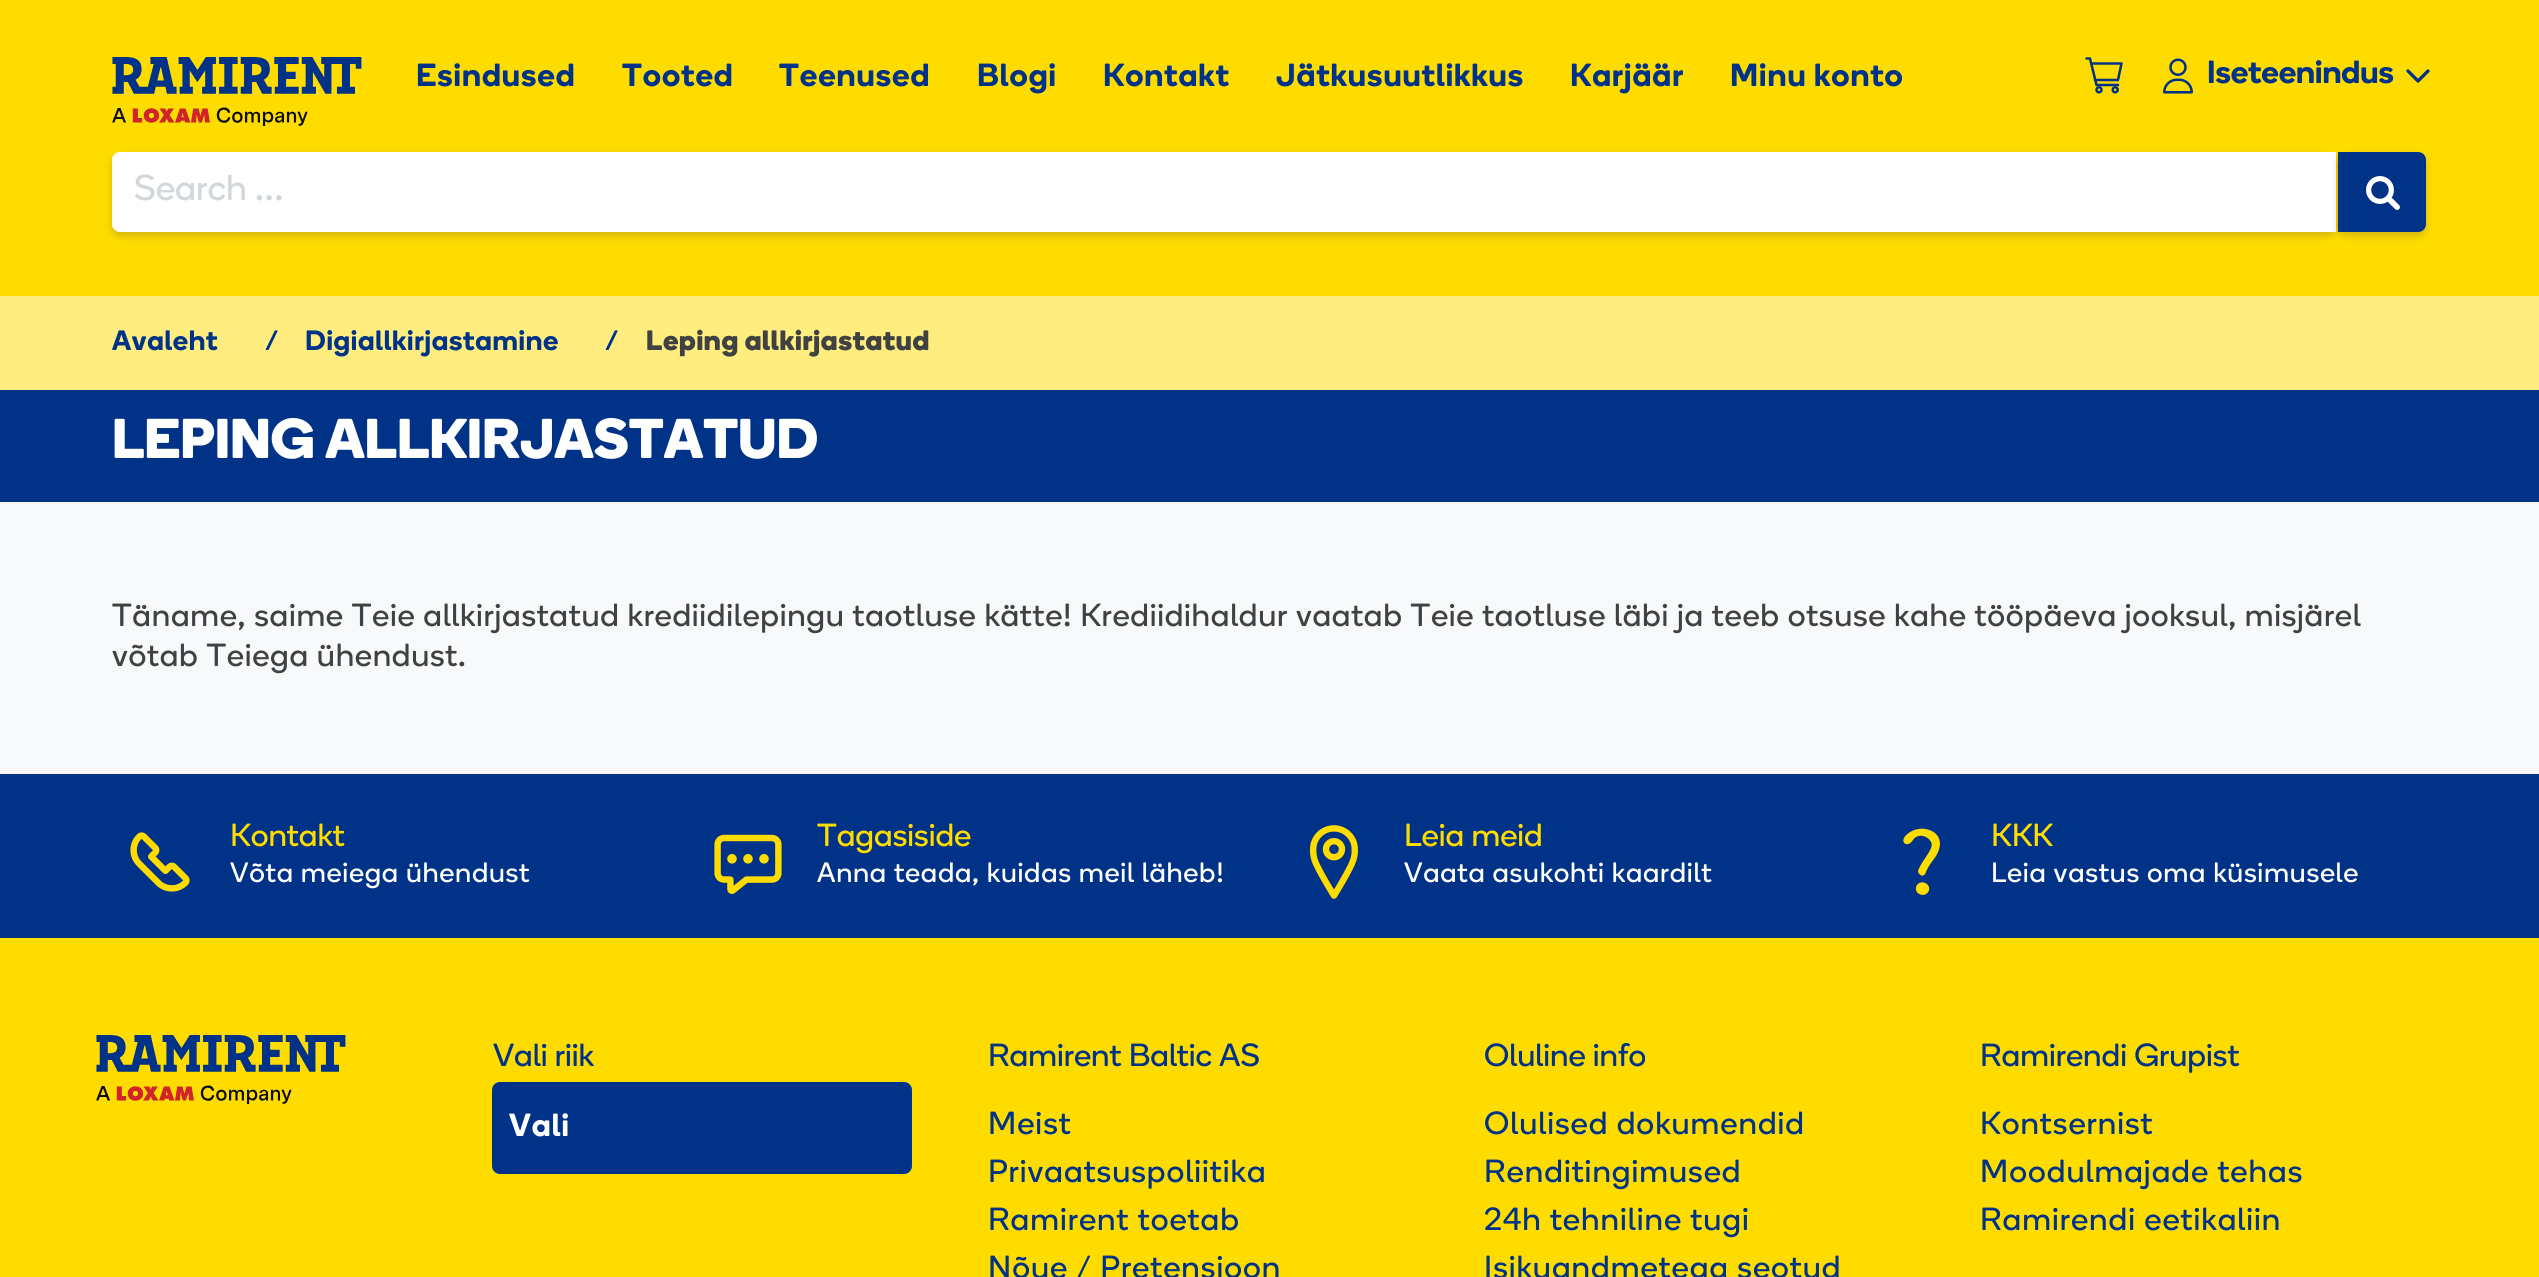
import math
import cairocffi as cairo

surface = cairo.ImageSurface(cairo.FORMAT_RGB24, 2539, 1277)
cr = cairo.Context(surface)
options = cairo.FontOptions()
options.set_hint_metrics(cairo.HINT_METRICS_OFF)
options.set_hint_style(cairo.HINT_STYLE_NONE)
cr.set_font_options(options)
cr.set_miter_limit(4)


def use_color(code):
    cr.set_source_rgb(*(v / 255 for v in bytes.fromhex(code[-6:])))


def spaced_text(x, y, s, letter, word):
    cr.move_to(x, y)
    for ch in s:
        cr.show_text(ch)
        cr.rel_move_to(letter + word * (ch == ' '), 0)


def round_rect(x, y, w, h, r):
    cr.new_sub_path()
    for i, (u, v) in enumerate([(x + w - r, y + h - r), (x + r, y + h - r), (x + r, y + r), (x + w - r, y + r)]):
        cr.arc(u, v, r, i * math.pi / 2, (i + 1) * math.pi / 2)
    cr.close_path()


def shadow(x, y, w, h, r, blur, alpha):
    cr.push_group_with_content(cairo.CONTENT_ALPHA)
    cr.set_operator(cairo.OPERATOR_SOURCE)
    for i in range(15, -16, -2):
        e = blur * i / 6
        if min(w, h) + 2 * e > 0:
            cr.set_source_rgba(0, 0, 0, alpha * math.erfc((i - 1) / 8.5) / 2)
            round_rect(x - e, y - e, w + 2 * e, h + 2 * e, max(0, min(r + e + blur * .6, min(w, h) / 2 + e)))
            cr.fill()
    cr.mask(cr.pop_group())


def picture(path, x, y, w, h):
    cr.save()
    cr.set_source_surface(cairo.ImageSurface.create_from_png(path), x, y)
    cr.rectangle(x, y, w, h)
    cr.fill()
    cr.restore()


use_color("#f8f9fa")
cr.paint()
use_color("#ffdc00")
cr.rectangle(0, 0, 2539, 296)
cr.fill()
cr.select_font_face("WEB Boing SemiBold")
cr.set_font_size(32)
use_color("#003287")
spaced_text(416, 86, "Esindused", 1, 0)
spaced_text(622, 86, "Tooted", 1, 0)
spaced_text(779, 86, "Teenused", 1, 0)
spaced_text(977, 86, "Blogi", 1, 0)
spaced_text(1103, 86, "Kontakt", 1, 0)
spaced_text(1276, 86, "Jätkusuutlikkus", 1, 0)
spaced_text(1570, 86, "Karjäär", 1, 0)
spaced_text(1730, 86, "Minu konto", 1, 0)
picture("img1.png", 112, 57, 250, 69)
cr.new_path()
cr.move_to(2091.5, 63.5)
cr.line_to(2121.5, 63.5)
cr.line_to(2118, 80)
cr.line_to(2095, 80)
cr.move_to(2118, 85)
cr.line_to(2096.5, 85)
cr.line_to(2090, 58.5)
cr.line_to(2086.5, 58.5)
cr.set_line_width(2.5)
cr.set_line_cap(cairo.LINE_CAP_ROUND)
cr.set_line_join(cairo.LINE_JOIN_ROUND)
cr.stroke()
cr.arc(2115.2, 89.8, 2.5, 0, 2 * math.pi)
cr.set_line_cap(cairo.LINE_CAP_BUTT)
cr.set_line_join(cairo.LINE_JOIN_MITER)
cr.stroke()
cr.arc(2099, 89.8, 2.5, 0, 2 * math.pi)
cr.stroke()
picture("img2.png", 2163, 58, 30, 36)
cr.move_to(2207, 83)
cr.show_text("Iseteenindus")
cr.new_path()
cr.move_to(2408, 71)
cr.line_to(2418, 81)
cr.line_to(2428, 71)
cr.set_line_width(3.3)
cr.set_line_cap(cairo.LINE_CAP_ROUND)
cr.set_line_join(cairo.LINE_JOIN_ROUND)
cr.stroke()
use_color("#3f4142")
shadow(112, 156, 2224, 80, 8, 4, 0.24)
use_color("#ffffff")
cr.new_path()
cr.move_to(120, 152)
cr.line_to(2336, 152)
cr.line_to(2336, 232)
cr.line_to(120, 232)
cr.curve_to(115.5, 232, 112, 228.5, 112, 224)
cr.line_to(112, 160)
cr.curve_to(112, 155.5, 115.5, 152, 120, 152)
cr.close_path()
cr.fill()
cr.select_font_face("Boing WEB")
cr.set_font_size(36)
use_color("#d2d7dc")
cr.move_to(134, 200)
cr.show_text("Search …")
use_color("#3f4142")
shadow(2338, 156, 88, 80, 8, 4, 0.24)
use_color("#003287")
cr.new_path()
cr.move_to(2338, 152)
cr.line_to(2418, 152)
cr.curve_to(2422.5, 152, 2426, 155.5, 2426, 160)
cr.line_to(2426, 224)
cr.curve_to(2426, 228.5, 2422.5, 232, 2418, 232)
cr.line_to(2338, 232)
cr.close_path()
cr.fill()
picture("img3.png", 2366, 176, 34, 34)
use_color("#ffed7f")
cr.rectangle(0, 296, 2539, 94)
cr.fill()
cr.select_font_face("WEB Boing SemiBold")
cr.set_font_size(28)
use_color("#003287")
spaced_text(112, 350, "Avaleht", 0.72, 0)
spaced_text(265, 350, "/", 0.72, 0)
spaced_text(305, 350, "Digiallkirjastamine", 0.72, 0)
spaced_text(605, 350, "/", 0.72, 0)
cr.select_font_face("Boing WEB", cairo.FONT_SLANT_NORMAL, cairo.FONT_WEIGHT_BOLD)
use_color("#3f4142")
spaced_text(646, 350, "Leping allkirjastatud", 0.72, 0)
use_color("#003287")
cr.rectangle(0, 390, 2539, 112)
cr.fill()
cr.set_font_size(56)
use_color("#ffffff")
cr.move_to(112, 458)
cr.show_text("LEPING ALLKIRJASTATUD")
cr.select_font_face("Boing WEB")
cr.set_font_size(32)
use_color("#3f4142")
spaced_text(112, 626, "Täname, saime Teie allkirjastatud krediidilepingu taotluse kätte! Krediidihaldur vaatab Teie taotluse läbi ja teeb otsuse kahe tööpäeva jooksul, misjärel", 0.72, 0)
spaced_text(112, 666, "võtab Teiega ühendust.", 0.72, 0)
use_color("#003287")
cr.rectangle(0, 774, 2539, 164)
cr.fill()
picture("img4.png", 130, 832, 60, 60)
use_color("#ffdc00")
cr.move_to(230, 846)
cr.show_text("Kontakt")
cr.set_font_size(28)
use_color("#ffffff")
spaced_text(230, 882, "Võta meiega ühendust", 0.72, 0)
picture("img5.png", 714, 834, 68, 60)
cr.set_font_size(32)
use_color("#ffdc00")
cr.move_to(817, 846)
cr.show_text("Tagasiside")
cr.set_font_size(28)
use_color("#ffffff")
spaced_text(817, 882, "Anna teada, kuidas meil läheb!", 0.72, 0)
picture("img6.png", 1309, 825, 49, 74)
cr.set_font_size(32)
use_color("#ffdc00")
cr.move_to(1404, 846)
cr.show_text("Leia meid")
cr.set_font_size(28)
use_color("#ffffff")
spaced_text(1404, 882, "Vaata asukohti kaardilt", 0.72, 0)
picture("img7.png", 1903, 828, 37, 67)
cr.set_font_size(32)
use_color("#ffdc00")
cr.move_to(1991, 846)
cr.show_text("KKK")
cr.set_font_size(28)
use_color("#ffffff")
spaced_text(1991, 882, "Leia vastus oma küsimusele", 0.72, 0)
use_color("#ffdc00")
cr.rectangle(0, 938, 2539, 339)
cr.fill()
picture("img8.png", 96, 1035, 250, 69)
cr.set_font_size(32)
use_color("#003287")
cr.move_to(493, 1066)
cr.show_text("Vali riik")
round_rect(492, 1082, 420, 92, 8)
cr.fill()
cr.select_font_face("WEB Boing SemiBold")
use_color("#ffffff")
spaced_text(509, 1136, "Vali", 1, 0)
cr.select_font_face("Boing WEB")
use_color("#003287")
cr.move_to(988, 1066)
cr.show_text("Ramirent Baltic AS")
spaced_text(988, 1134, "Meist", 1, 0)
spaced_text(988, 1182, "Privaatsuspoliitika", 1, 0)
spaced_text(988, 1230, "Ramirent toetab", 1, 0)
spaced_text(988, 1278, "Nõue / Pretensioon", 1, 0)
cr.move_to(1484, 1066)
cr.show_text("Oluline info")
spaced_text(1484, 1134, "Olulised dokumendid", 1, 0)
spaced_text(1484, 1182, "Renditingimused", 1, 0)
spaced_text(1484, 1230, "24h tehniline tugi", 1, 0)
spaced_text(1484, 1278, "Isikuandmetega seotud", 1, 0)
cr.move_to(1980, 1066)
cr.show_text("Ramirendi Grupist")
spaced_text(1980, 1134, "Kontsernist", 1, 0)
spaced_text(1980, 1182, "Moodulmajade tehas", 1, 0)
spaced_text(1980, 1230, "Ramirendi eetikaliin", 1, 0)
surface.write_to_png("result.png")
